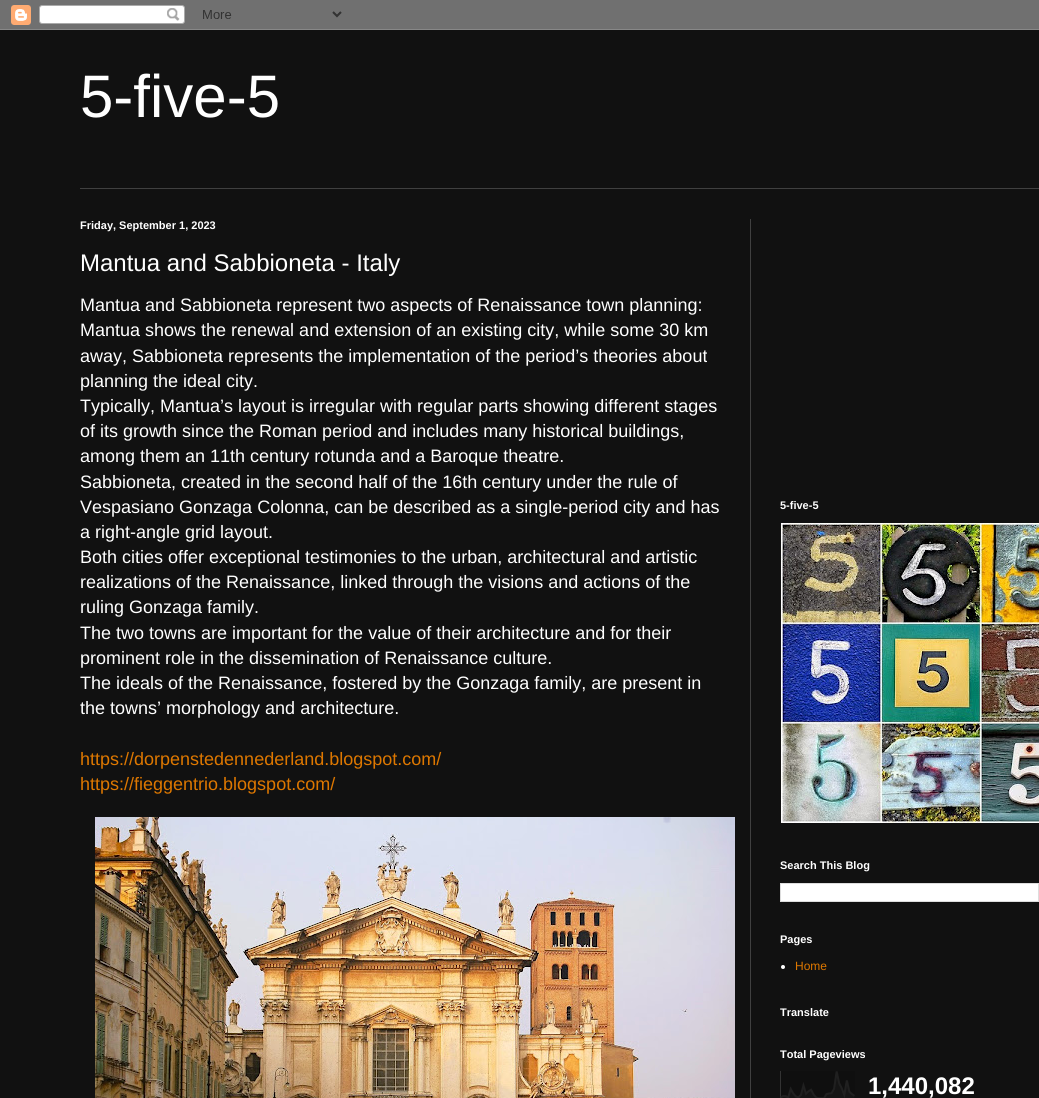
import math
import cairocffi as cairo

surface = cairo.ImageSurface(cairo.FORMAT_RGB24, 1039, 1098)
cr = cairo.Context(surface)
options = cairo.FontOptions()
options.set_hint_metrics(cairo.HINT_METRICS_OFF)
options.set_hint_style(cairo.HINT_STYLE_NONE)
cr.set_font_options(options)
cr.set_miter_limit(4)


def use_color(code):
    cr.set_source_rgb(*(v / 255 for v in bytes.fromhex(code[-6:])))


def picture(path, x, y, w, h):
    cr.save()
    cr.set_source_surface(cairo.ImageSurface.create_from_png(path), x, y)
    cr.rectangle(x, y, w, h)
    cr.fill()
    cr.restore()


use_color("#111111")
cr.paint()
picture("img1.png", 0, 0, 1039, 30)
cr.select_font_face("Liberation Sans")
cr.set_font_size(60)
use_color("#ffffff")
cr.move_to(80, 117)
cr.show_text("5-five-5")
use_color("#404040")
cr.rectangle(80, 188, 959, 1)
cr.fill()
cr.rectangle(750, 219, 1, 879)
cr.fill()
cr.select_font_face("Liberation Sans", cairo.FONT_SLANT_NORMAL, cairo.FONT_WEIGHT_BOLD)
cr.set_font_size(11)
use_color("#ffffff")
cr.move_to(80, 229)
cr.show_text("Friday, September 1, 2023")
cr.select_font_face("Liberation Sans")
cr.set_font_size(24)
cr.move_to(80, 271)
cr.show_text("Mantua and Sabbioneta - Italy")
cr.set_font_size(18)
cr.move_to(80, 311)
cr.show_text("Mantua and Sabbioneta represent two aspects of Renaissance town planning:")
cr.move_to(80, 336)
cr.show_text("Mantua shows the renewal and extension of an existing city, while some 30 km")
cr.move_to(80, 362)
cr.show_text("away, Sabbioneta represents the implementation of the period’s theories about")
cr.move_to(80, 387)
cr.show_text("planning the ideal city.")
cr.move_to(80, 412)
cr.show_text("Typically, Mantua’s layout is irregular with regular parts showing different stages")
cr.move_to(80, 437)
cr.show_text("of its growth since the Roman period and includes many historical buildings,")
cr.move_to(80, 462)
cr.show_text("among them an 11th century rotunda and a Baroque theatre.")
cr.move_to(80, 488)
cr.show_text("Sabbioneta, created in the second half of the 16th century under the rule of")
cr.move_to(80, 513)
cr.show_text("Vespasiano Gonzaga Colonna, can be described as a single-period city and has")
cr.move_to(80, 538)
cr.show_text("a right-angle grid layout.")
cr.move_to(80, 563)
cr.show_text("Both cities offer exceptional testimonies to the urban, architectural and artistic")
cr.move_to(80, 588)
cr.show_text("realizations of the Renaissance, linked through the visions and actions of the")
cr.move_to(80, 613)
cr.show_text("ruling Gonzaga family.")
cr.move_to(80, 639)
cr.show_text("The two towns are important for the value of their architecture and for their")
cr.move_to(80, 664)
cr.show_text("prominent role in the dissemination of Renaissance culture.")
cr.move_to(80, 689)
cr.show_text("The ideals of the Renaissance, fostered by the Gonzaga family, are present in")
cr.move_to(80, 714)
cr.show_text("the towns’ morphology and architecture.")
use_color("#dd7700")
cr.move_to(80, 765)
cr.show_text("https://dorpenstedennederland.blogspot.com/")
cr.move_to(80, 790)
cr.show_text("https://fieggentrio.blogspot.com/")
picture("img2.png", 95, 817, 640, 281)
cr.select_font_face("Liberation Sans", cairo.FONT_SLANT_NORMAL, cairo.FONT_WEIGHT_BOLD)
cr.set_font_size(11)
use_color("#ffffff")
cr.move_to(780, 509)
cr.show_text("5-five-5")
picture("img3.png", 781, 523, 258, 300)
cr.move_to(780, 869)
cr.show_text("Search This Blog")
cr.rectangle(780.5, 883.5, 258, 18)
cr.fill_preserve()
use_color("#dddddd")
cr.set_line_width(1)
cr.stroke()
use_color("#ffffff")
cr.move_to(780, 943)
cr.show_text("Pages")
cr.new_path()
cr.arc(783, 967, 2, 0, 2 * math.pi)
cr.fill()
cr.select_font_face("Liberation Sans")
cr.set_font_size(12)
use_color("#dd7700")
cr.move_to(795, 970)
cr.show_text("Home")
cr.select_font_face("Liberation Sans", cairo.FONT_SLANT_NORMAL, cairo.FONT_WEIGHT_BOLD)
cr.set_font_size(11)
use_color("#ffffff")
cr.move_to(780, 1016)
cr.show_text("Translate")
cr.move_to(780, 1058)
cr.show_text("Total Pageviews")
picture("img4.png", 780, 1071, 75, 27)
cr.set_font_size(24)
cr.move_to(868, 1094)
cr.show_text("1,440,082")
surface.write_to_png("result.png")
